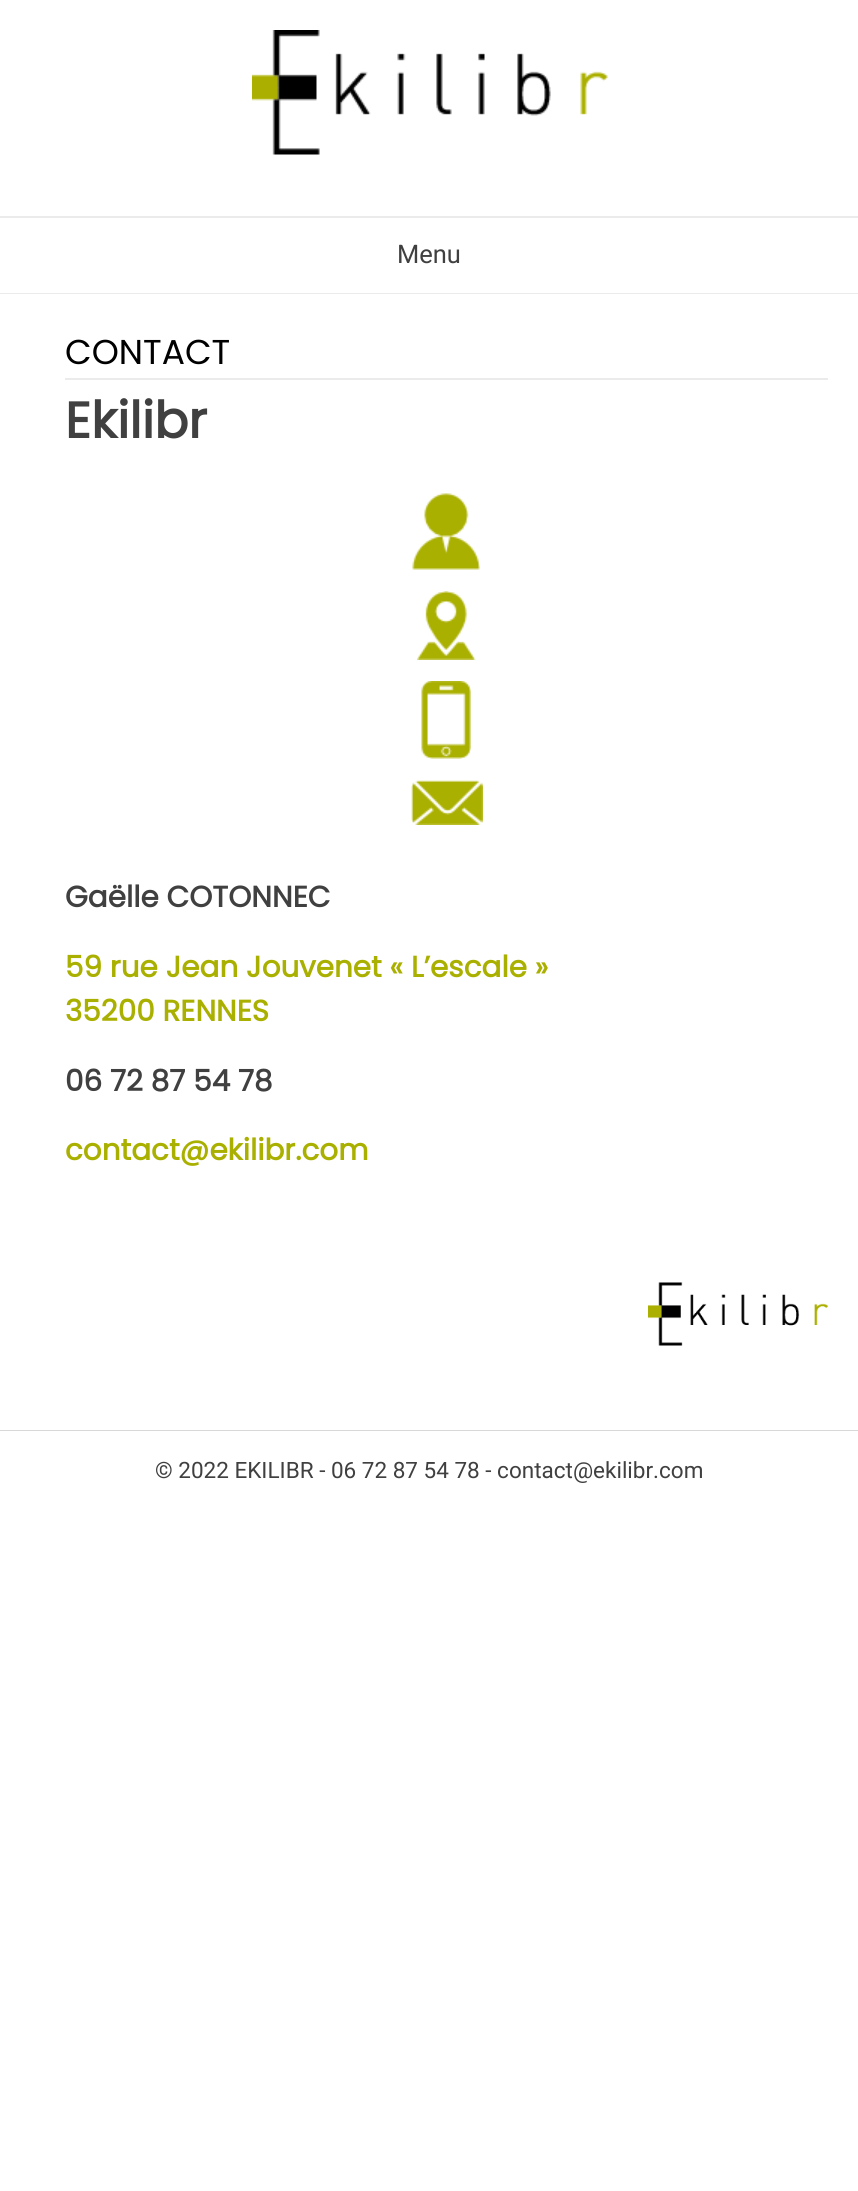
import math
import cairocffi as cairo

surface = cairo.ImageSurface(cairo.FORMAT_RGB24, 858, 2191)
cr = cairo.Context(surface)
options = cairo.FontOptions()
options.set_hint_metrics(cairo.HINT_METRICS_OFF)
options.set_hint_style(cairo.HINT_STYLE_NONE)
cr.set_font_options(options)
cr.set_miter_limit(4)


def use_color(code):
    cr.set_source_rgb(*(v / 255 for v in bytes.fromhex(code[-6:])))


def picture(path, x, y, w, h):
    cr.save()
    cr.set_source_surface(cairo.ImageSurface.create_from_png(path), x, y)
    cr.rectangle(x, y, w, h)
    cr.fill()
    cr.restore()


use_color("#ffffff")
cr.paint()
use_color("#ebebeb")
cr.rectangle(0, 293, 858, 1)
cr.fill()
picture("img1.png", 252, 30, 356, 125)
cr.rectangle(0, 216, 858, 2)
cr.fill()
cr.select_font_face("Roboto")
cr.set_font_size(25.5)
use_color("#404040")
cr.move_to(397, 263)
cr.show_text("Menu")
use_color("#ebebeb")
cr.rectangle(65, 378, 763, 2)
cr.fill()
cr.select_font_face("Poppins")
cr.set_font_size(34.5)
use_color("#000000")
cr.move_to(65, 364)
cr.show_text("CONTACT")
cr.select_font_face("Poppins", cairo.FONT_SLANT_NORMAL, cairo.FONT_WEIGHT_BOLD)
cr.set_font_size(50.5)
use_color("#404040")
cr.move_to(65, 438)
cr.show_text("Ekilibr")
picture("img2.png", 412, 493, 68, 77)
picture("img3.png", 417, 591, 59, 69)
picture("img4.png", 421, 681, 50, 78)
picture("img5.png", 411, 780, 72, 45)
cr.set_font_size(29.4)
cr.move_to(65, 907)
cr.show_text("Gaëlle COTONNEC")
use_color("#aab000")
cr.move_to(65, 977)
cr.show_text("59 rue Jean Jouvenet « L’escale »")
cr.move_to(65, 1021)
cr.show_text("35200 RENNES")
use_color("#404040")
cr.move_to(65, 1091)
cr.show_text("06 72 87 54 78")
use_color("#aab000")
cr.move_to(65, 1160)
cr.show_text("contact@ekilibr.com")
picture("img6.png", 648, 1282, 180, 64)
use_color("#d8d8d8")
cr.rectangle(0, 1430, 858, 1)
cr.fill()
cr.select_font_face("Roboto")
cr.set_font_size(22.5)
use_color("#404040")
cr.move_to(155, 1478)
cr.show_text("© 2022 EKILIBR - 06 72 87 54 78 - contact@ekilibr.com")
surface.write_to_png("result.png")
